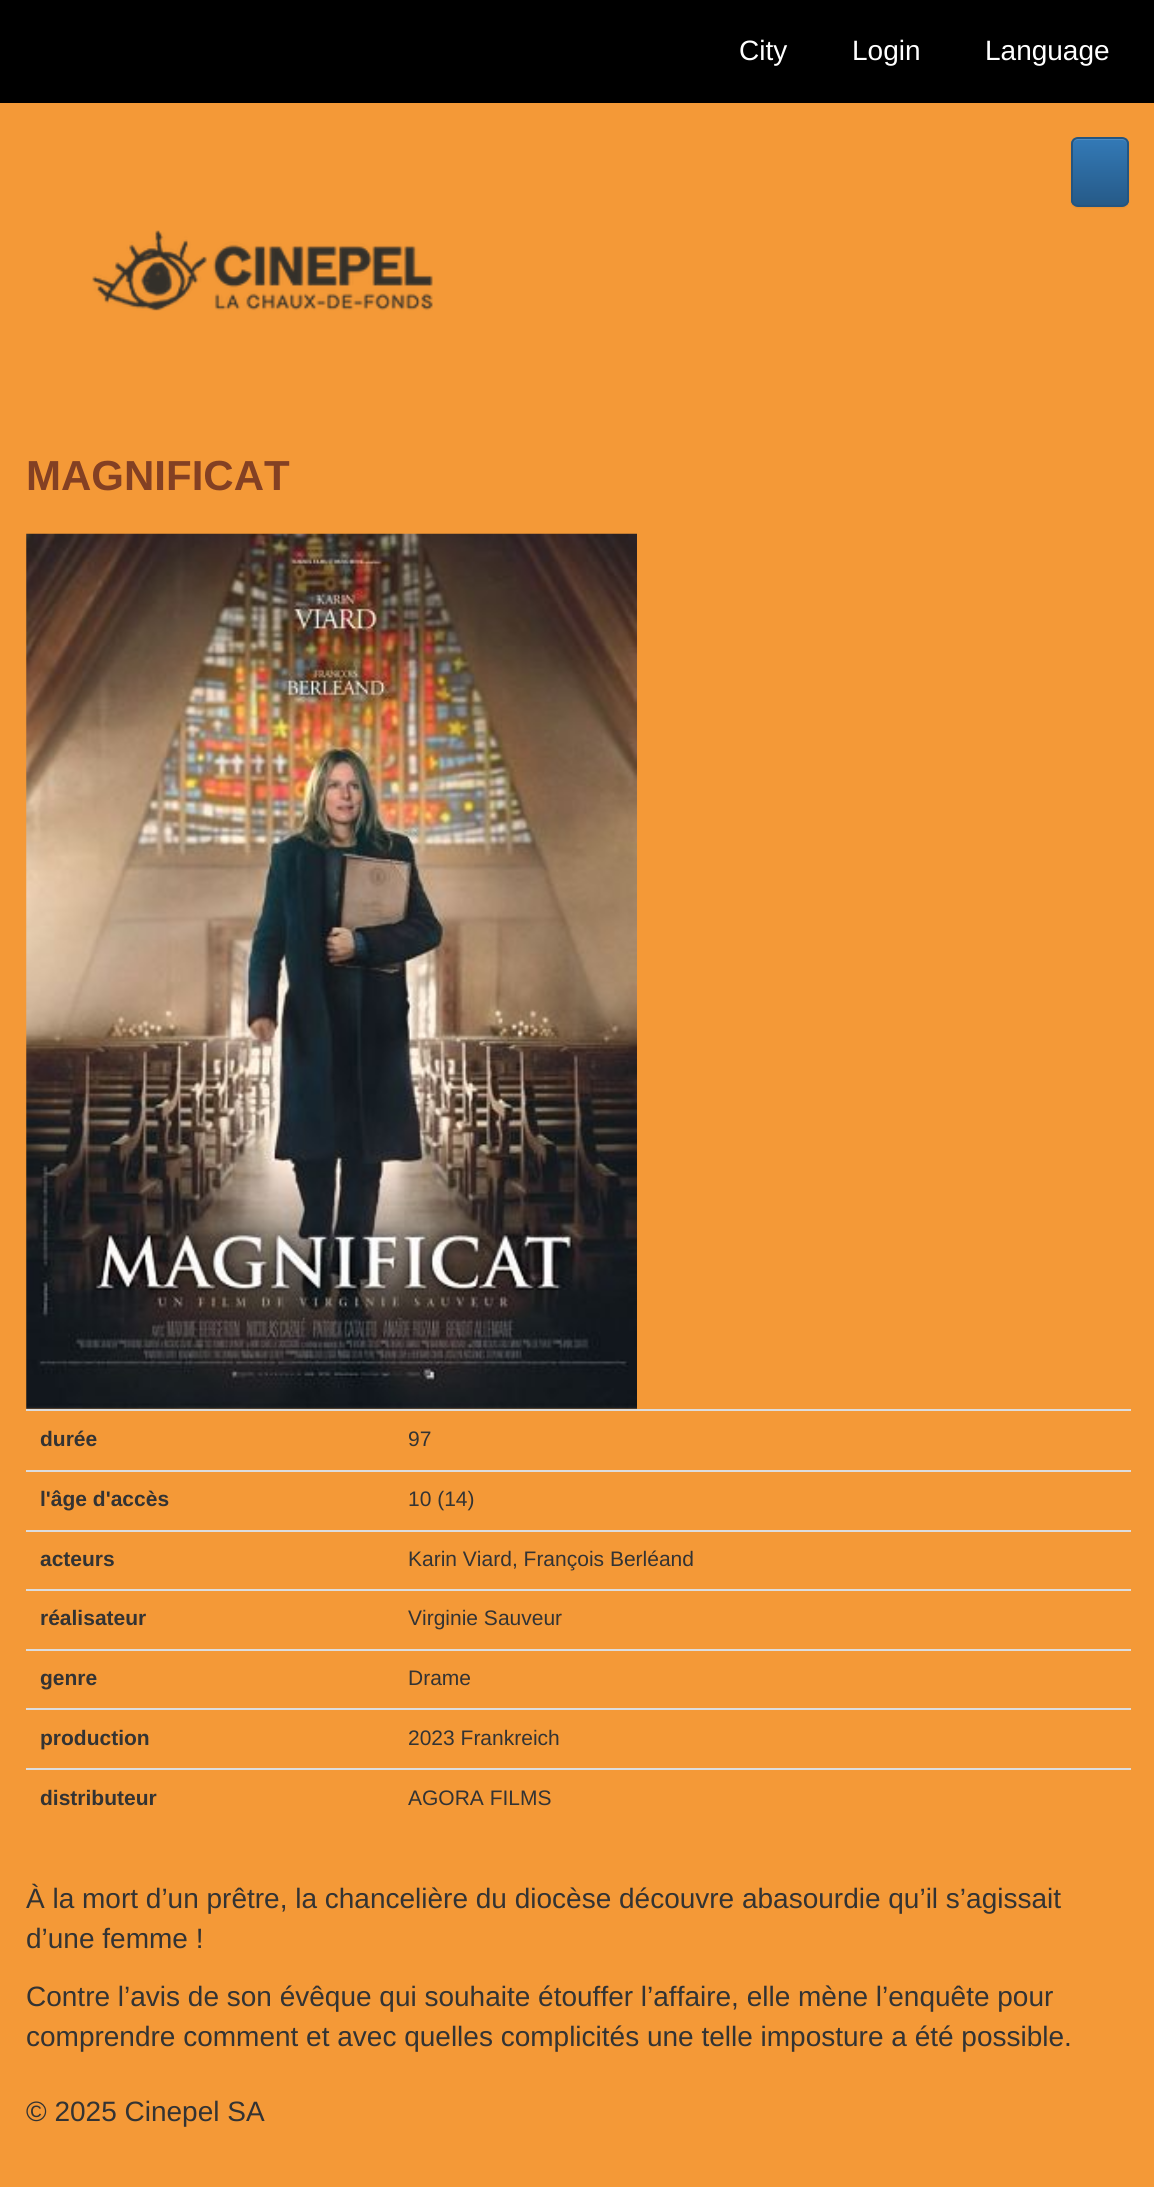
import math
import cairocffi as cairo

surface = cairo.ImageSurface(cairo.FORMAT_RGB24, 1154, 2187)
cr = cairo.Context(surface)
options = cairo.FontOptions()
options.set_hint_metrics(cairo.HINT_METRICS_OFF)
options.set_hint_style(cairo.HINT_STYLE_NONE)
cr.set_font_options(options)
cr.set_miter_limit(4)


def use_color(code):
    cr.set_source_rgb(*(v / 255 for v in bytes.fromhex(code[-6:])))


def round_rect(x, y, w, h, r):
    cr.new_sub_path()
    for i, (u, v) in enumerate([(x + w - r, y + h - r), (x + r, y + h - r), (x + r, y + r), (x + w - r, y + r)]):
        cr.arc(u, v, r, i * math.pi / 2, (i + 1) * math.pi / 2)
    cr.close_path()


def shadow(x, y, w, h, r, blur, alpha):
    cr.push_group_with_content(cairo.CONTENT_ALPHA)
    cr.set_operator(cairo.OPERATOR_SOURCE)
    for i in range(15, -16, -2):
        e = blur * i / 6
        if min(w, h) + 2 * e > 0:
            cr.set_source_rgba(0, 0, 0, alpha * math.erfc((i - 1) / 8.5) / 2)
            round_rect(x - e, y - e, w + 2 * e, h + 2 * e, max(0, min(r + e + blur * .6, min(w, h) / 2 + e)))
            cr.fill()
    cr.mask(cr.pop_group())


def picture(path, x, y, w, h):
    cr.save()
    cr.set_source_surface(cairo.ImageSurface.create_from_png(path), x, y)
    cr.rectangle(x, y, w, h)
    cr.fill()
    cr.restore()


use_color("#f49937")
cr.paint()
use_color("#000000")
cr.rectangle(0, 0, 1154, 103)
cr.fill()
cr.select_font_face("Liberation Sans")
cr.set_font_size(28)
use_color("#ffffff")
cr.move_to(739, 60)
cr.show_text("City")
cr.move_to(852, 60)
cr.show_text("Login")
cr.move_to(985, 60)
cr.show_text("Language")
use_color("#000000")
shadow(1071, 138, 58, 70, 7, 1, 0.07)
cr.save()
round_rect(1071, 137, 58, 70, 7)
cr.clip()
gradient = cairo.LinearGradient(1100, 138, 1100, 205)
gradient.add_color_stop_rgba(0, 0.2, 0.478, 0.718, 1)
gradient.add_color_stop_rgba(1, 0.149, 0.353, 0.533, 1)
cr.set_source(gradient)
cr.rectangle(1071, 138, 58, 67)
cr.fill()
cr.restore()
use_color("#528dc1")
cr.new_path()
cr.move_to(1078, 140)
cr.line_to(1122, 140)
cr.curve_to(1125, 140, 1127, 142, 1127, 145)
cr.curve_to(1127, 137, 1122, 138, 1115, 138)
cr.line_to(1085, 138)
cr.curve_to(1078, 138, 1073, 137, 1073, 145)
cr.curve_to(1073, 142, 1075, 140, 1078, 140)
cr.close_path()
cr.fill()
round_rect(1072, 138, 56, 68, 6)
use_color("#245580")
cr.stroke()
picture("img1.png", 92, 230, 341, 81)
cr.select_font_face("Liberation Sans", cairo.FONT_SLANT_NORMAL, cairo.FONT_WEIGHT_BOLD)
cr.set_font_size(42)
use_color("#834023")
cr.move_to(26, 490)
cr.show_text("MAGNIFICAT")
picture("img2.png", 26, 533, 611, 876)
cr.set_font_size(21)
use_color("#333333")
cr.move_to(40, 1446)
cr.show_text("durée")
use_color("#dddddd")
cr.rectangle(26, 1409, 1105, 2)
cr.fill()
cr.select_font_face("Liberation Sans")
use_color("#333333")
cr.move_to(408, 1446)
cr.show_text("97")
cr.select_font_face("Liberation Sans", cairo.FONT_SLANT_NORMAL, cairo.FONT_WEIGHT_BOLD)
cr.move_to(40, 1506)
cr.show_text("l'âge d'accès")
use_color("#dddddd")
cr.rectangle(26, 1470, 1105, 2)
cr.fill()
cr.select_font_face("Liberation Sans")
use_color("#333333")
cr.move_to(408, 1506)
cr.show_text("10 (14)")
cr.select_font_face("Liberation Sans", cairo.FONT_SLANT_NORMAL, cairo.FONT_WEIGHT_BOLD)
cr.move_to(40, 1566)
cr.show_text("acteurs")
use_color("#dddddd")
cr.rectangle(26, 1530, 1105, 2)
cr.fill()
cr.select_font_face("Liberation Sans")
use_color("#333333")
cr.move_to(408, 1566)
cr.show_text("Karin Viard, François Berléand")
cr.select_font_face("Liberation Sans", cairo.FONT_SLANT_NORMAL, cairo.FONT_WEIGHT_BOLD)
cr.move_to(40, 1625)
cr.show_text("réalisateur")
use_color("#dddddd")
cr.rectangle(26, 1589, 1105, 2)
cr.fill()
cr.select_font_face("Liberation Sans")
use_color("#333333")
cr.move_to(408, 1625)
cr.show_text("Virginie Sauveur")
cr.select_font_face("Liberation Sans", cairo.FONT_SLANT_NORMAL, cairo.FONT_WEIGHT_BOLD)
cr.move_to(40, 1685)
cr.show_text("genre")
use_color("#dddddd")
cr.rectangle(26, 1649, 1105, 2)
cr.fill()
cr.select_font_face("Liberation Sans")
use_color("#333333")
cr.move_to(408, 1685)
cr.show_text("Drame")
cr.select_font_face("Liberation Sans", cairo.FONT_SLANT_NORMAL, cairo.FONT_WEIGHT_BOLD)
cr.move_to(40, 1745)
cr.show_text("production")
use_color("#dddddd")
cr.rectangle(26, 1708, 1105, 2)
cr.fill()
cr.select_font_face("Liberation Sans")
use_color("#333333")
cr.move_to(408, 1745)
cr.show_text("2023 Frankreich")
cr.select_font_face("Liberation Sans", cairo.FONT_SLANT_NORMAL, cairo.FONT_WEIGHT_BOLD)
cr.move_to(40, 1805)
cr.show_text("distributeur")
use_color("#dddddd")
cr.rectangle(26, 1768, 1105, 2)
cr.fill()
cr.select_font_face("Liberation Sans")
use_color("#333333")
cr.move_to(408, 1805)
cr.show_text("AGORA FILMS")
cr.set_font_size(28)
cr.move_to(26, 1908)
cr.show_text("À la mort d’un prêtre, la chancelière du diocèse découvre abasourdie qu’il s’agissait")
cr.move_to(26, 1948)
cr.show_text("d’une femme !")
cr.move_to(26, 2006)
cr.show_text("Contre l’avis de son évêque qui souhaite étouffer l’affaire, elle mène l’enquête pour")
cr.move_to(26, 2046)
cr.show_text("comprendre comment et avec quelles complicités une telle imposture a été possible.")
cr.move_to(26, 2121)
cr.show_text("© 2025 Cinepel SA")
surface.write_to_png("result.png")
